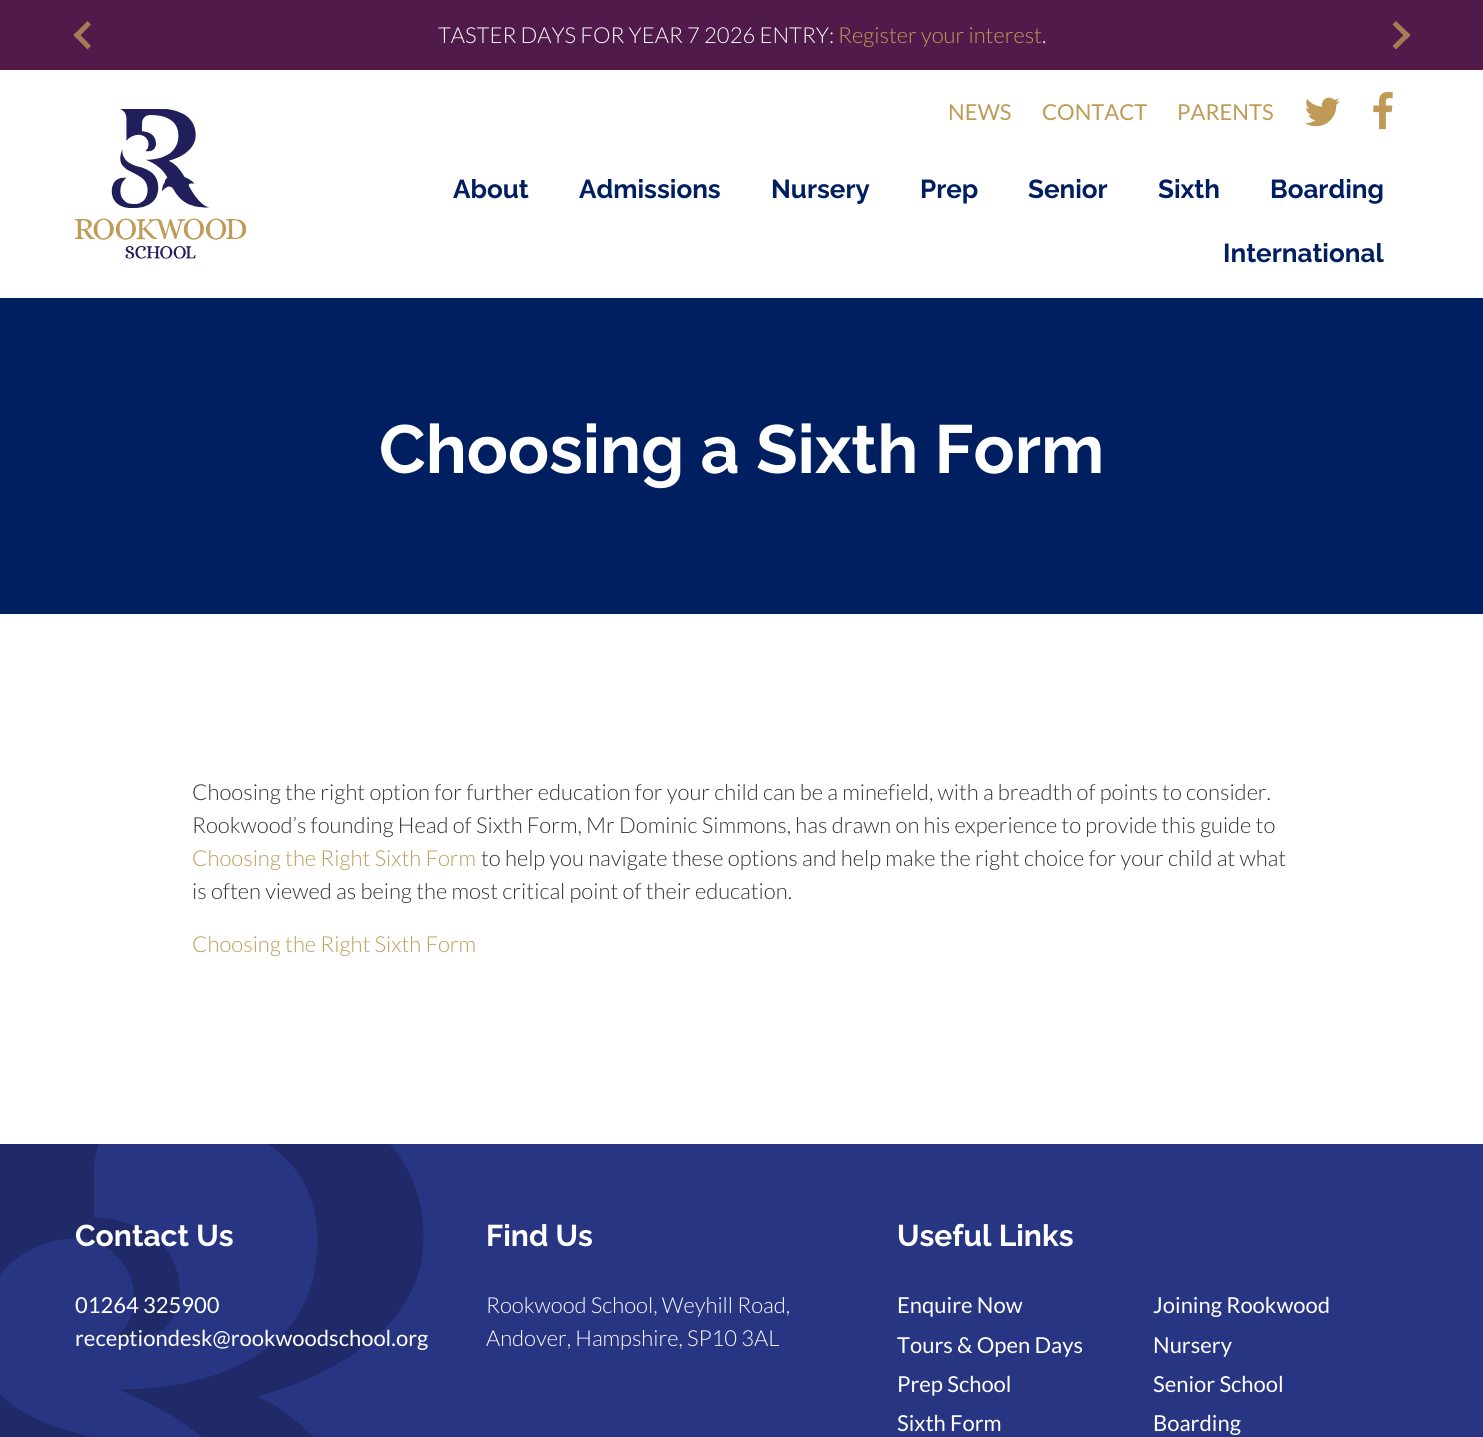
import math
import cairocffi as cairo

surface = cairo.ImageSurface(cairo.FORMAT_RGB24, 1483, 1437)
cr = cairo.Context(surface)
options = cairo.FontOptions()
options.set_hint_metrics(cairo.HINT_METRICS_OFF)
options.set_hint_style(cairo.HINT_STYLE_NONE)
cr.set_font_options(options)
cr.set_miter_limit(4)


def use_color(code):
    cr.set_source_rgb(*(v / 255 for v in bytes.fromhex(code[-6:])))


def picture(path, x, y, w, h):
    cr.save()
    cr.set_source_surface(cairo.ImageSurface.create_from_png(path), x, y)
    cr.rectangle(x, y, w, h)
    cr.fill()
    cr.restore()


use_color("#ffffff")
cr.paint()
use_color("#501b4a")
cr.rectangle(0, 0, 1483, 70)
cr.fill()
use_color("#a47b54")
cr.new_path()
cr.move_to(91, 46)
cr.line_to(87.5, 49.5)
cr.line_to(73.5, 35)
cr.line_to(77, 31.5)
cr.close_path()
cr.fill()
cr.new_path()
cr.move_to(91, 24.5)
cr.line_to(77, 39)
cr.line_to(73.5, 35)
cr.line_to(87.5, 21)
cr.close_path()
cr.fill()
cr.select_font_face("Lato Light")
cr.set_font_size(22)
use_color("#ffffff")
cr.move_to(438, 43)
cr.show_text("TASTER DAYS FOR YEAR 7 2026 ENTRY:")
use_color("#c09b57")
cr.move_to(838, 43)
cr.show_text("Register your interest")
use_color("#ffffff")
cr.move_to(1042, 43)
cr.show_text(".")
use_color("#a47b54")
cr.new_path()
cr.move_to(1392.5, 24.5)
cr.line_to(1396, 21)
cr.line_to(1410.5, 35)
cr.line_to(1407, 39)
cr.close_path()
cr.fill()
cr.new_path()
cr.move_to(1392.5, 46)
cr.line_to(1407, 31.5)
cr.line_to(1410.5, 35)
cr.line_to(1396, 49.5)
cr.close_path()
cr.fill()
picture("img1.png", 75, 109, 171, 150)
cr.select_font_face("Lato")
use_color("#c09b57")
cr.move_to(948, 120)
cr.show_text("NEWS")
cr.move_to(1042, 120)
cr.show_text("CONTACT")
cr.move_to(1177, 120)
cr.show_text("PARENTS")
picture("img2.png", 1305, 97, 35, 30)
picture("img3.png", 1373, 92, 20, 38)
cr.select_font_face("Raleway Thin")
cr.set_font_size(26)
use_color("#001f60")
cr.move_to(453, 198)
cr.show_text("About")
cr.move_to(579, 198)
cr.show_text("Admissions")
cr.move_to(771, 198)
cr.show_text("Nursery")
cr.move_to(920, 198)
cr.show_text("Prep")
cr.move_to(1028, 198)
cr.show_text("Senior")
cr.move_to(1158, 198)
cr.show_text("Sixth")
cr.move_to(1270, 198)
cr.show_text("Boarding")
cr.move_to(1223, 262)
cr.show_text("International")
cr.rectangle(0, 298, 1483, 316)
cr.fill()
cr.set_font_size(68)
use_color("#ffffff")
cr.move_to(379, 473)
cr.show_text("Choosing a Sixth Form")
cr.select_font_face("Lato Light")
cr.set_font_size(22)
use_color("#333333")
cr.move_to(192, 800)
cr.show_text("Choosing the right option for further education for your child can be a minefield, with a breadth of points to consider.")
cr.move_to(192, 833)
cr.show_text("Rookwood’s founding Head of Sixth Form, Mr Dominic Simmons, has drawn on his experience to provide this guide to")
use_color("#c09b57")
cr.move_to(192, 866)
cr.show_text("Choosing the Right Sixth Form")
use_color("#333333")
cr.move_to(481, 866)
cr.show_text("to help you navigate these options and help make the right choice for your child at what")
cr.move_to(192, 899)
cr.show_text("is often viewed as being the most critical point of their education.")
use_color("#c09b57")
cr.move_to(192, 952)
cr.show_text("Choosing the Right Sixth Form")
use_color("#283583")
cr.rectangle(0, 1144, 1483, 293)
cr.fill()
picture("img4.png", 0, 1144, 424, 293)
cr.select_font_face("Raleway Thin")
cr.set_font_size(30)
use_color("#ffffff")
cr.move_to(75, 1246)
cr.show_text("Contact Us")
cr.select_font_face("Lato")
cr.set_font_size(22)
cr.move_to(75, 1313)
cr.show_text("01264 325900")
cr.move_to(75, 1346)
cr.show_text("receptiondesk@rookwoodschool.org")
cr.select_font_face("Raleway Thin")
cr.set_font_size(30)
cr.move_to(486, 1246)
cr.show_text("Find Us")
cr.select_font_face("Lato Light")
cr.set_font_size(22)
cr.move_to(486, 1313)
cr.show_text("Rookwood School, Weyhill Road,")
cr.move_to(486, 1346)
cr.show_text("Andover, Hampshire, SP10 3AL")
cr.select_font_face("Raleway Thin")
cr.set_font_size(30)
cr.move_to(897, 1246)
cr.show_text("Useful Links")
cr.select_font_face("Lato")
cr.set_font_size(22)
cr.move_to(897, 1313)
cr.show_text("Enquire Now")
cr.move_to(1153, 1313)
cr.show_text("Joining Rookwood")
cr.move_to(897, 1353)
cr.show_text("Tours & Open Days")
cr.move_to(1153, 1353)
cr.show_text("Nursery")
cr.move_to(897, 1392)
cr.show_text("Prep School")
cr.move_to(1153, 1392)
cr.show_text("Senior School")
cr.move_to(897, 1431)
cr.show_text("Sixth Form")
cr.move_to(1153, 1431)
cr.show_text("Boarding")
surface.write_to_png("result.png")
